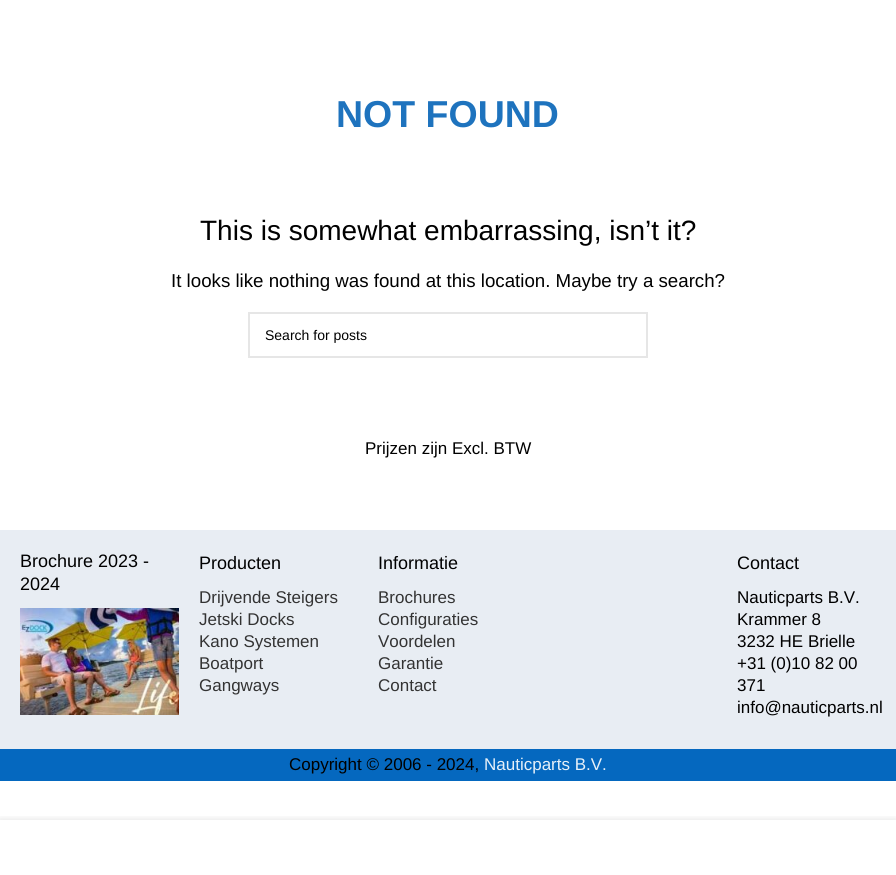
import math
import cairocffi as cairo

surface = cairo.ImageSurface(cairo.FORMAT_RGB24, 896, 875)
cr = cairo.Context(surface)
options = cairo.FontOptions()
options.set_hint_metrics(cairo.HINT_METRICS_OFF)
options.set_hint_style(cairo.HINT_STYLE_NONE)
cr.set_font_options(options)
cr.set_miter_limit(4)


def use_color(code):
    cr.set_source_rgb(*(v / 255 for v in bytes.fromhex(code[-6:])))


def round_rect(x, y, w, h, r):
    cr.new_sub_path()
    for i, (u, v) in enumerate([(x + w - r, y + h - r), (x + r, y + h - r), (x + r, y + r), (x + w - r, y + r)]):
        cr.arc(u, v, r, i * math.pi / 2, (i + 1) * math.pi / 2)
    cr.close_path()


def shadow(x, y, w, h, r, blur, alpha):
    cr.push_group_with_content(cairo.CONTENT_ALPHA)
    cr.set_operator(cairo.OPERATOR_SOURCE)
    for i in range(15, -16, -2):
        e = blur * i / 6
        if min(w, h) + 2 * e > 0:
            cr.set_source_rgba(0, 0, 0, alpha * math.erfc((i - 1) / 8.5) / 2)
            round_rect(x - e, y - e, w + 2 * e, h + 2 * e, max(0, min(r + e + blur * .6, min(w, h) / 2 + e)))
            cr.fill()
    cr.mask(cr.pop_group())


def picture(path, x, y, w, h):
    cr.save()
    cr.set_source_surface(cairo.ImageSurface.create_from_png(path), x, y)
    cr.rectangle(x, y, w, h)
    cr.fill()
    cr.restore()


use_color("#ffffff")
cr.paint()
cr.select_font_face("Liberation Sans", cairo.FONT_SLANT_NORMAL, cairo.FONT_WEIGHT_BOLD)
cr.set_font_size(37.5)
use_color("#1e73be")
cr.move_to(336, 127)
cr.show_text("NOT FOUND")
cr.select_font_face("Liberation Sans")
cr.set_font_size(28)
use_color("#000000")
cr.move_to(200, 240)
cr.show_text("This is somewhat embarrassing, isn’t it?")
cr.set_font_size(18.7)
cr.move_to(171, 287)
cr.show_text("It looks like nothing was found at this location. Maybe try a search?")
cr.rectangle(249, 313, 398, 44)
use_color("#e6e6e6")
cr.stroke()
cr.set_font_size(14)
use_color("#000000")
cr.move_to(265, 340)
cr.show_text("Search for posts")
cr.set_font_size(17)
cr.move_to(365, 454)
cr.show_text("Prijzen zijn Excl. BTW")
use_color("#e8edf3")
cr.rectangle(0, 530, 896, 219)
cr.fill()
cr.set_font_size(18)
use_color("#000000")
cr.move_to(20, 567)
cr.show_text("Brochure 2023 -")
cr.move_to(20, 590)
cr.show_text("2024")
picture("img1.png", 20, 608, 159, 107)
cr.move_to(199, 569)
cr.show_text("Producten")
cr.set_font_size(17)
use_color("#333333")
cr.move_to(199, 603)
cr.show_text("Drijvende Steigers")
cr.move_to(199, 625)
cr.show_text("Jetski Docks")
cr.move_to(199, 647)
cr.show_text("Kano Systemen")
cr.move_to(199, 669)
cr.show_text("Boatport")
cr.move_to(199, 691)
cr.show_text("Gangways")
cr.set_font_size(18)
use_color("#000000")
cr.move_to(378, 569)
cr.show_text("Informatie")
cr.set_font_size(17)
use_color("#333333")
cr.move_to(378, 603)
cr.show_text("Brochures")
cr.move_to(378, 625)
cr.show_text("Configuraties")
cr.move_to(378, 647)
cr.show_text("Voordelen")
cr.move_to(378, 669)
cr.show_text("Garantie")
cr.move_to(378, 691)
cr.show_text("Contact")
cr.set_font_size(18)
use_color("#000000")
cr.move_to(737, 569)
cr.show_text("Contact")
cr.set_font_size(17)
cr.move_to(737, 603)
cr.show_text("Nauticparts B.V.")
cr.move_to(737, 625)
cr.show_text("Krammer 8")
cr.move_to(737, 647)
cr.show_text("3232 HE Brielle")
cr.move_to(737, 669)
cr.show_text("+31 (0)10 82 00")
cr.move_to(737, 691)
cr.show_text("371")
cr.move_to(737, 713)
cr.show_text("info@nauticparts.nl")
use_color("#0568bf")
cr.rectangle(0, 749, 896, 32)
cr.fill()
use_color("#000000")
cr.move_to(289, 770)
cr.show_text("Copyright © 2006 - 2024,")
use_color("#e6f0f9")
cr.move_to(484, 770)
cr.show_text("Nauticparts B.V.")
cr.save()
cr.rectangle(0, 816, 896, 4)
cr.clip()
use_color("#000000")
shadow(0, 820, 896, 55, 0, 4.5, 0.12)
cr.restore()
surface.write_to_png("result.png")
